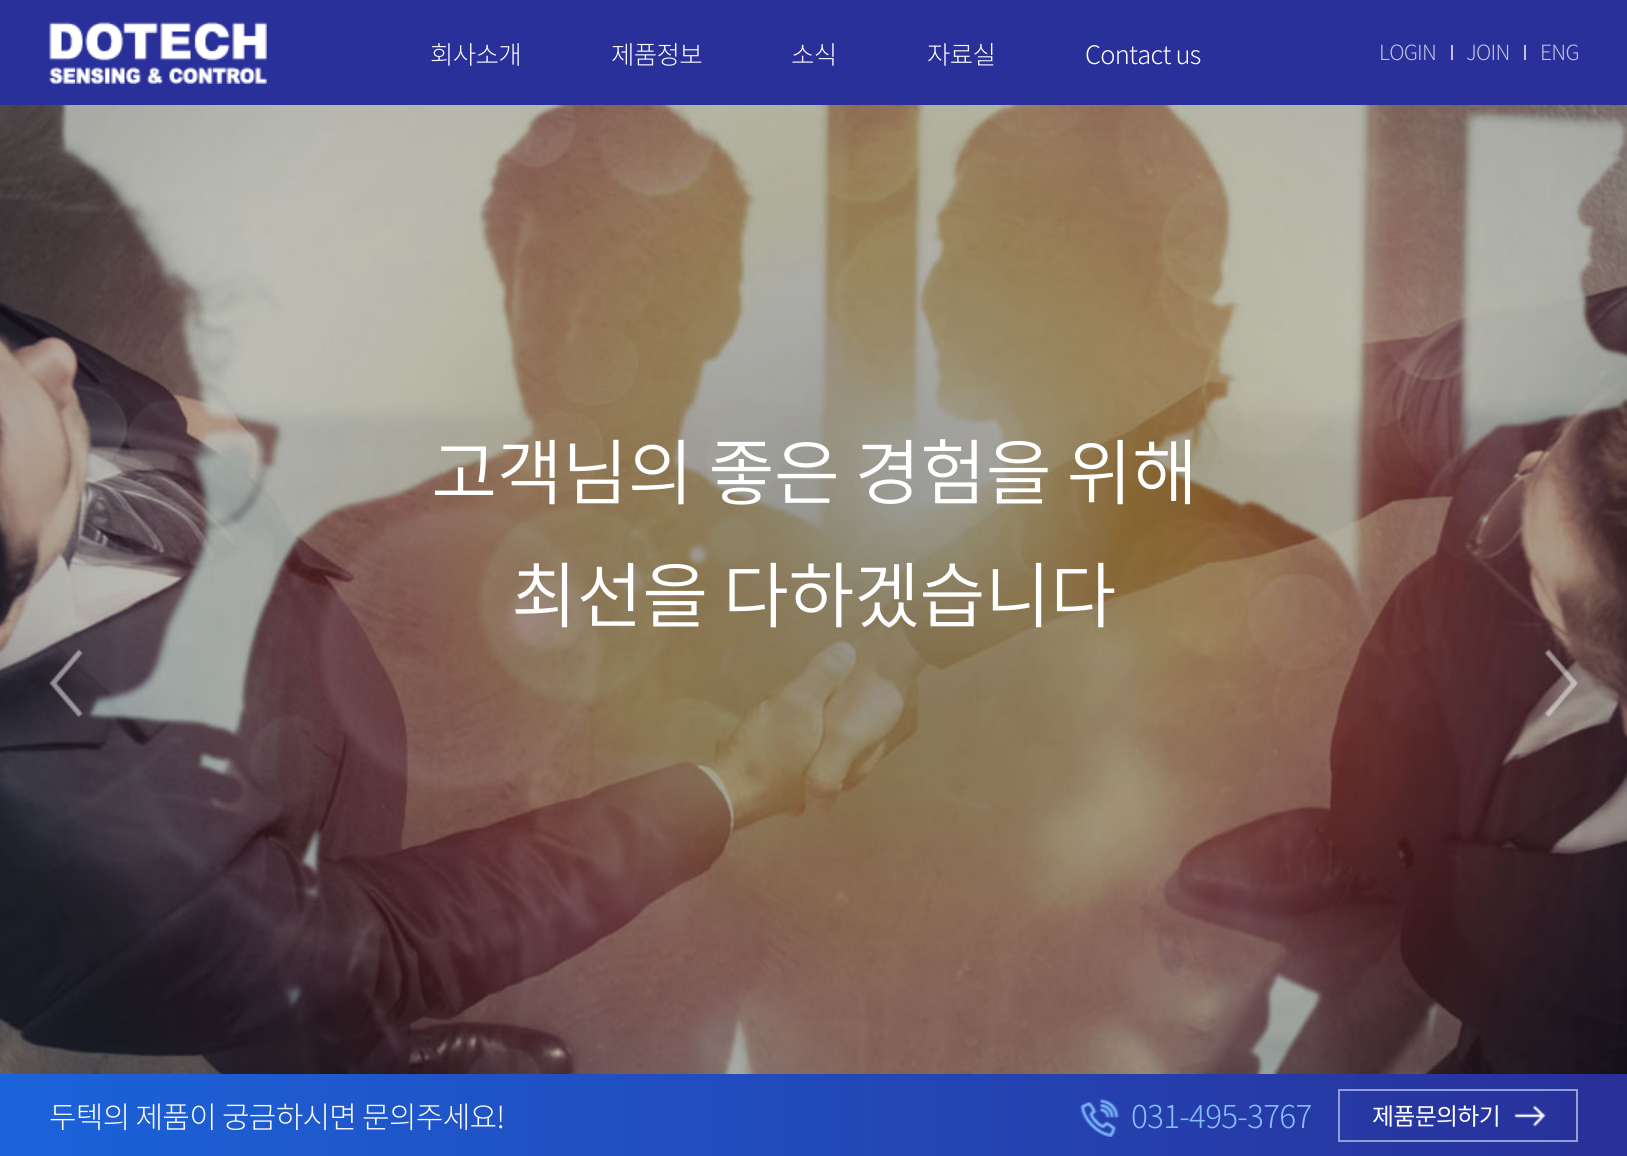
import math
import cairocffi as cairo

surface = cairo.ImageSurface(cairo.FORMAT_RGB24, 1627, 1156)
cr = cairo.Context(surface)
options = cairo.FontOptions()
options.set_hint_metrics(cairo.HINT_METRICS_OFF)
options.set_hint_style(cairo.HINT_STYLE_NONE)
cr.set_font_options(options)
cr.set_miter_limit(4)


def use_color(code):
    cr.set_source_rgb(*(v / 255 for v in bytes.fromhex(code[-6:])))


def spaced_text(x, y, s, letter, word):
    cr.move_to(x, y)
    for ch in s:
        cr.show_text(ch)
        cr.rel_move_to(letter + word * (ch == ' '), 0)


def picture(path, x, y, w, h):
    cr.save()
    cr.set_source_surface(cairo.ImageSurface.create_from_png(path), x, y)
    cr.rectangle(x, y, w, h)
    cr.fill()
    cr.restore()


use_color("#293099")
cr.paint()
picture("img1.png", 49, 22, 218, 62)
cr.select_font_face("Noto Sans KR Light")
cr.set_font_size(25.5)
use_color("#ffffff")
spaced_text(430, 64, "회사소개", -0.75, 0)
spaced_text(611, 64, "제품정보", -0.75, 0)
spaced_text(791, 64, "소식", -0.75, 0)
spaced_text(927, 64, "자료실", -0.75, 0)
spaced_text(1085, 64, "Contact us", -0.75, 0)
cr.set_font_size(21)
use_color("#bfc1e0")
spaced_text(1379, 60, "LOGIN", -0.75, 0)
cr.rectangle(1451, 45, 2, 15)
cr.fill()
spaced_text(1466, 60, "JOIN", -0.75, 0)
cr.rectangle(1524, 45, 2, 15)
cr.fill()
spaced_text(1540, 60, "ENG", -0.75, 0)
picture("img2.png", 0, 105, 1627, 969)
cr.select_font_face("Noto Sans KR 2 Light")
cr.set_font_size(72)
use_color("#ffffff")
spaced_text(431, 499, "고객님의 좋은 경험을 위해", -0.75, 0)
spaced_text(511, 622, "최선을 다하겠습니다", -0.75, 0)
picture("img3.png", 49, 649, 34, 68)
picture("img4.png", 1545, 649, 33, 68)
gradient = cairo.LinearGradient(0, 1115, 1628, 1115)
gradient.add_color_stop_rgba(0, 0.106, 0.388, 0.855, 1)
gradient.add_color_stop_rgba(1, 0.161, 0.188, 0.6, 1)
cr.set_source(gradient)
cr.rectangle(0, 1074, 1565, 82)
cr.fill()
cr.select_font_face("Noto Sans KR Light")
cr.set_font_size(30)
use_color("#ffffff")
spaced_text(49, 1128, "두텍의 제품이 궁금하시면 문의주세요!", -0.75, 0)
picture("img5.png", 1080, 1099, 40, 38)
cr.set_font_size(31.5)
use_color("#83bdff")
spaced_text(1131, 1128, "031-495-3767", -0.75, 0)
cr.rectangle(1339, 1090, 238, 51)
use_color("#929fd5")
cr.stroke()
cr.select_font_face("Noto Sans KR")
cr.set_font_size(24)
use_color("#ffffff")
spaced_text(1372, 1125, "제품문의하기", -0.75, 0)
picture("img6.png", 1514, 1105, 32, 22)
surface.write_to_png("result.png")
